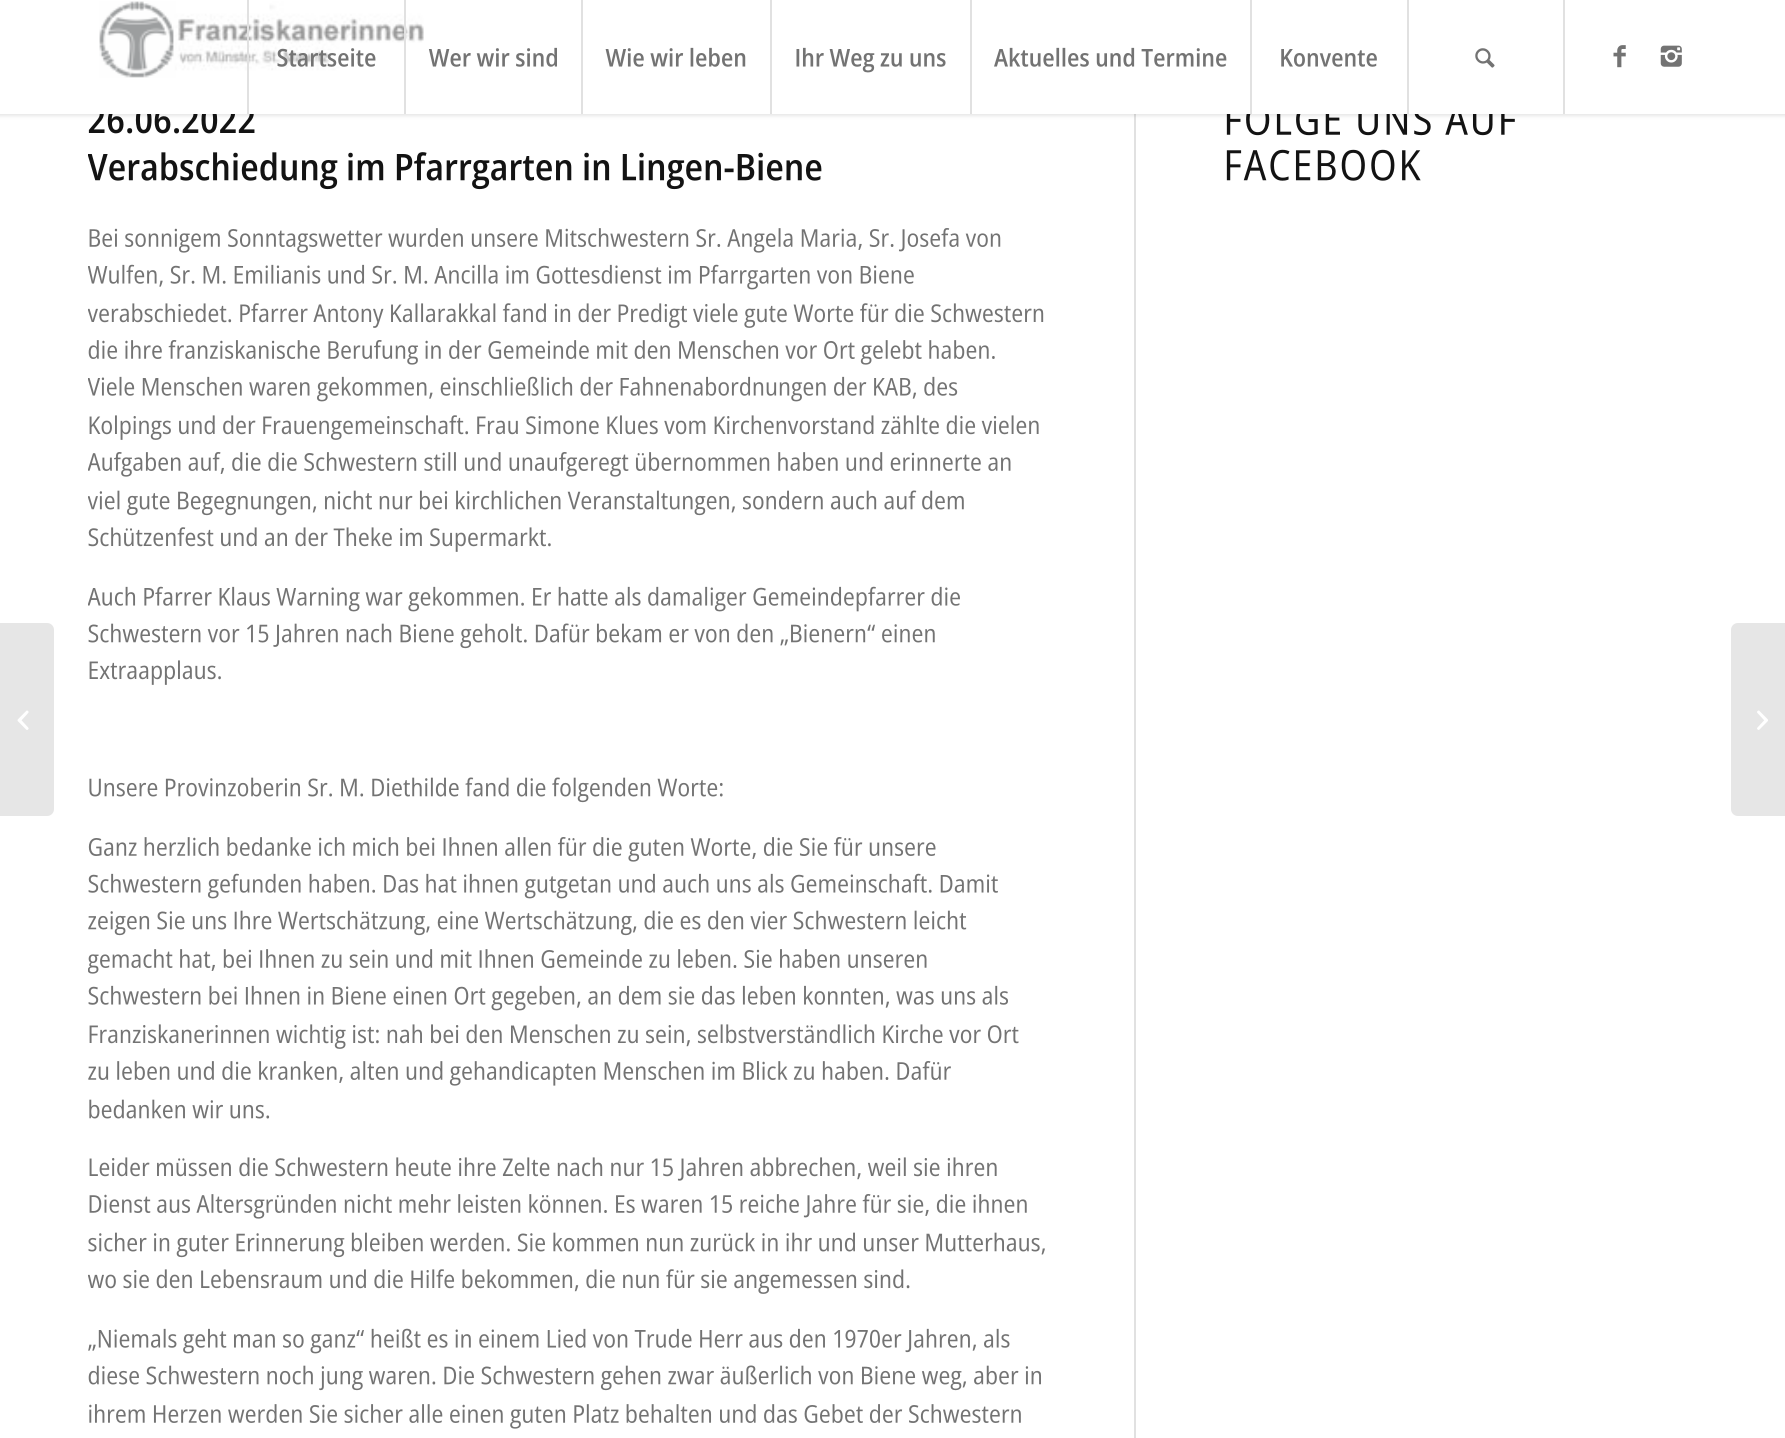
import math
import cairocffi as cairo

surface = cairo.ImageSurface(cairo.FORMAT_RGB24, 1785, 1438)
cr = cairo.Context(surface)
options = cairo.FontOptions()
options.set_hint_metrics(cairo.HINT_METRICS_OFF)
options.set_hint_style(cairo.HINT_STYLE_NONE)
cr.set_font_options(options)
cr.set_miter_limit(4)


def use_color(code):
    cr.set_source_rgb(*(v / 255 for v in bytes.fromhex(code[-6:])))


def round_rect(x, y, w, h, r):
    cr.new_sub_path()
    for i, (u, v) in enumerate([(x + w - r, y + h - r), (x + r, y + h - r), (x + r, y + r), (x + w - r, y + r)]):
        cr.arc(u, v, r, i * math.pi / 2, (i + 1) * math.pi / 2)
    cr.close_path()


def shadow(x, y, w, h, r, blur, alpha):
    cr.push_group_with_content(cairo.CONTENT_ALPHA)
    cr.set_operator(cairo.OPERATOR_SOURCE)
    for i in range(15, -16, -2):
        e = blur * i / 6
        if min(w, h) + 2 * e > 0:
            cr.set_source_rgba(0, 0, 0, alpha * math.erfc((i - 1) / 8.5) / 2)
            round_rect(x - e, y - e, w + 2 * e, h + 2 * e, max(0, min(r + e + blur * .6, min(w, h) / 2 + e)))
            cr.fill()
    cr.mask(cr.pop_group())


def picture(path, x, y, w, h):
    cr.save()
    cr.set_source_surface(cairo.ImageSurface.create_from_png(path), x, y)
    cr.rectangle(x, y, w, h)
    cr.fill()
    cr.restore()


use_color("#ffffff")
cr.paint()
use_color("#e1e1e1")
cr.rectangle(1134, 114, 2, 1324)
cr.fill()
picture("img12.png", 88, 114, 167, 20)
picture("img42.png", 1226, 114, 289, 22)
use_color("#000000")
shadow(-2, -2, 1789, 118, 0, 2, 0.1)
use_color("#ffffff")
cr.rectangle(0, 0, 1785, 114)
cr.fill()
picture("img10.png", 99, 1, 325, 77)
use_color("#e1e1e1")
cr.rectangle(247, 0, 2, 114)
cr.fill()
picture("img1.png", 277, 48, 99, 19)
cr.rectangle(404, 0, 2, 114)
cr.fill()
picture("img2.png", 428, 47, 129, 20)
cr.rectangle(581, 0, 2, 114)
cr.fill()
picture("img3.png", 605, 47, 141, 20)
cr.rectangle(770, 0, 2, 114)
cr.fill()
picture("img4.png", 796, 47, 150, 26)
cr.rectangle(970, 0, 2, 114)
cr.fill()
picture("img5.png", 994, 47, 233, 20)
cr.rectangle(1250, 0, 2, 114)
cr.fill()
picture("img6.png", 1281, 49, 96, 18)
cr.rectangle(1563, 0, 2, 114)
cr.fill()
cr.rectangle(1407, 0, 2, 114)
cr.fill()
picture("img7.png", 1475, 48, 20, 20)
picture("img8.png", 1613, 45, 13, 23)
picture("img9.png", 1660, 45, 22, 22)
use_color("#e6e6e6")
cr.new_path()
cr.move_to(0, 623)
cr.line_to(47, 623)
cr.curve_to(51, 623, 54, 626, 54, 630)
cr.line_to(54, 809)
cr.curve_to(54, 813, 51, 816, 47, 816)
cr.line_to(0, 816)
cr.close_path()
cr.fill()
picture("img11.png", 17, 710, 12, 20)
picture("img13.png", 88, 152, 734, 38)
picture("img14.png", 89, 228, 912, 25)
picture("img15.png", 88, 264, 826, 26)
picture("img16.png", 88, 303, 956, 25)
picture("img17.png", 88, 340, 907, 25)
picture("img18.png", 88, 376, 870, 26)
picture("img19.png", 89, 415, 950, 25)
picture("img20.png", 88, 452, 923, 25)
picture("img21.png", 88, 490, 876, 26)
picture("img22.png", 88, 527, 463, 25)
picture("img23.png", 88, 586, 872, 26)
picture("img24.png", 88, 623, 847, 26)
picture("img25.png", 89, 660, 132, 25)
picture("img26.png", 89, 777, 634, 26)
picture("img27.png", 88, 837, 848, 25)
picture("img28.png", 88, 873, 910, 26)
picture("img29.png", 88, 910, 879, 26)
picture("img30.png", 88, 949, 839, 25)
picture("img31.png", 88, 985, 920, 26)
picture("img32.png", 89, 1024, 930, 25)
picture("img33.png", 88, 1061, 863, 25)
picture("img34.png", 89, 1099, 181, 20)
picture("img35.png", 89, 1157, 908, 24)
picture("img36.png", 89, 1194, 938, 25)
picture("img37.png", 88, 1232, 957, 26)
picture("img38.png", 88, 1269, 822, 25)
picture("img39.png", 88, 1328, 922, 26)
picture("img40.png", 88, 1365, 953, 26)
picture("img41.png", 89, 1404, 932, 25)
picture("img43.png", 1226, 149, 195, 32)
cr.new_path()
cr.move_to(1738, 623)
cr.line_to(1785, 623)
cr.line_to(1785, 816)
cr.line_to(1738, 816)
cr.curve_to(1734, 816, 1731, 813, 1731, 809)
cr.line_to(1731, 630)
cr.curve_to(1731, 626, 1734, 623, 1738, 623)
cr.close_path()
cr.fill()
picture("img44.png", 1757, 710, 11, 20)
surface.write_to_png("result.png")
